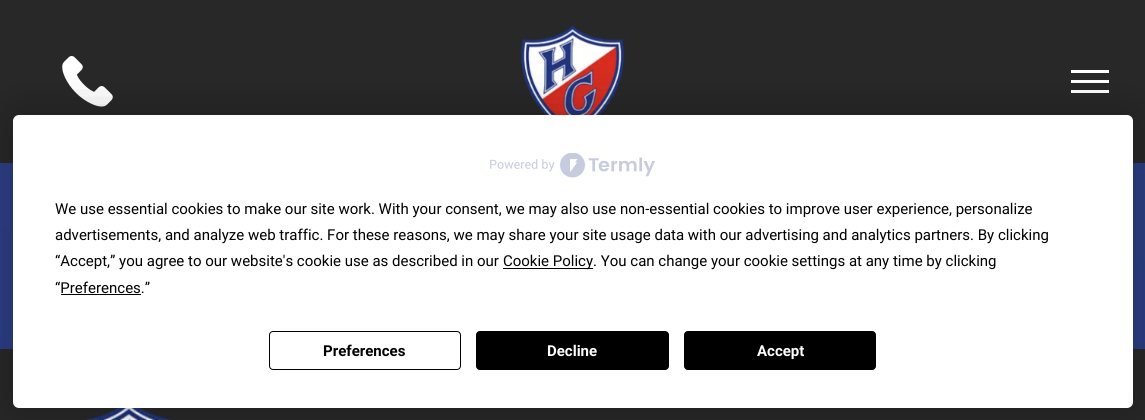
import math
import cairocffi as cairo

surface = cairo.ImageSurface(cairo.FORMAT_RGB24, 1145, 420)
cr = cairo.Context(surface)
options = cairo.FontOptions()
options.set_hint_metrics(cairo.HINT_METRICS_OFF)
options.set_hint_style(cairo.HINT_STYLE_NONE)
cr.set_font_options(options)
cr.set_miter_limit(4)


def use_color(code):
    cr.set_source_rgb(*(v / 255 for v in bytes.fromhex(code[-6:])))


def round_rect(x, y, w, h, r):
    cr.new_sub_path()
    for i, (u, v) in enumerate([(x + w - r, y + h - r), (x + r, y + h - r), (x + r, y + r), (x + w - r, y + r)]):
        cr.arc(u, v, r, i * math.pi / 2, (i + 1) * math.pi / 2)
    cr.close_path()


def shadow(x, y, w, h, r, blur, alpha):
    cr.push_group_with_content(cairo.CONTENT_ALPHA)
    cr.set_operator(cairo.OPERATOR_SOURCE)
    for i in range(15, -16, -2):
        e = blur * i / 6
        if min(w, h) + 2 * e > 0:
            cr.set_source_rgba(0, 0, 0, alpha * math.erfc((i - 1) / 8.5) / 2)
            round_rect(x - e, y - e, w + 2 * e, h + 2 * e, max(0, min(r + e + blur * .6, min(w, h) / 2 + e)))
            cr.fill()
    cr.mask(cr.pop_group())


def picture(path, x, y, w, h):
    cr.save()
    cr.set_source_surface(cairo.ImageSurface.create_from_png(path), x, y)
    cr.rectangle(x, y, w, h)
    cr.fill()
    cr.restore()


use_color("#ffffff")
cr.paint()
use_color("#282828")
cr.rectangle(0, 0, 1145, 163)
cr.fill()
picture("img1.png", 62, 56, 51, 51)
picture("img2.png", 521, 25, 103, 90)
use_color("#ffffff")
cr.rectangle(1071, 70, 38, 3)
cr.fill()
cr.rectangle(1071, 80, 38, 3)
cr.fill()
cr.rectangle(1071, 90, 38, 3)
cr.fill()
picture("img3.png", 0, 163, 1145, 186)
use_color("#282828")
cr.rectangle(0, 349, 1145, 71)
cr.fill()
picture("img4.png", 85, 408, 87, 12)
use_color("#000000")
shadow(13, 115, 1120, 293, 6, 22, 0.25)
use_color("#ffffff")
round_rect(13, 115, 1120, 293, 6)
cr.fill()
picture("img5.png", 490, 153, 165, 25)
cr.select_font_face("Roboto")
cr.set_font_size(15)
use_color("#000000")
cr.move_to(55, 214)
cr.show_text("We use essential cookies to make our site work. With your consent, we may also use non-essential cookies to improve user experience, personalize")
cr.move_to(55, 240)
cr.show_text("advertisements, and analyze web traffic. For these reasons, we may share your site usage data with our advertising and analytics partners. By clicking")
cr.move_to(55, 266)
cr.show_text("“Accept,” you agree to our website's cookie use as described in our")
cr.rectangle(503, 268, 90, 1)
cr.fill()
cr.move_to(503, 266)
cr.show_text("Cookie Policy. You can change your cookie settings at any time by clicking")
cr.move_to(55, 293)
cr.show_text("“Preferences.”")
cr.rectangle(61, 294, 80, 1)
cr.fill()
round_rect(269.5, 331.5, 191, 38, 3.5)
cr.set_line_width(1)
cr.stroke()
cr.select_font_face("Roboto", cairo.FONT_SLANT_NORMAL, cairo.FONT_WEIGHT_BOLD)
cr.move_to(323, 356)
cr.show_text("Preferences")
round_rect(476.5, 331.5, 192, 38, 3.5)
cr.fill_preserve()
cr.stroke()
use_color("#ffffff")
cr.move_to(547, 356)
cr.show_text("Decline")
use_color("#000000")
round_rect(684.5, 331.5, 191, 38, 3.5)
cr.fill_preserve()
cr.stroke()
use_color("#ffffff")
cr.move_to(757, 356)
cr.show_text("Accept")
surface.write_to_png("result.png")
